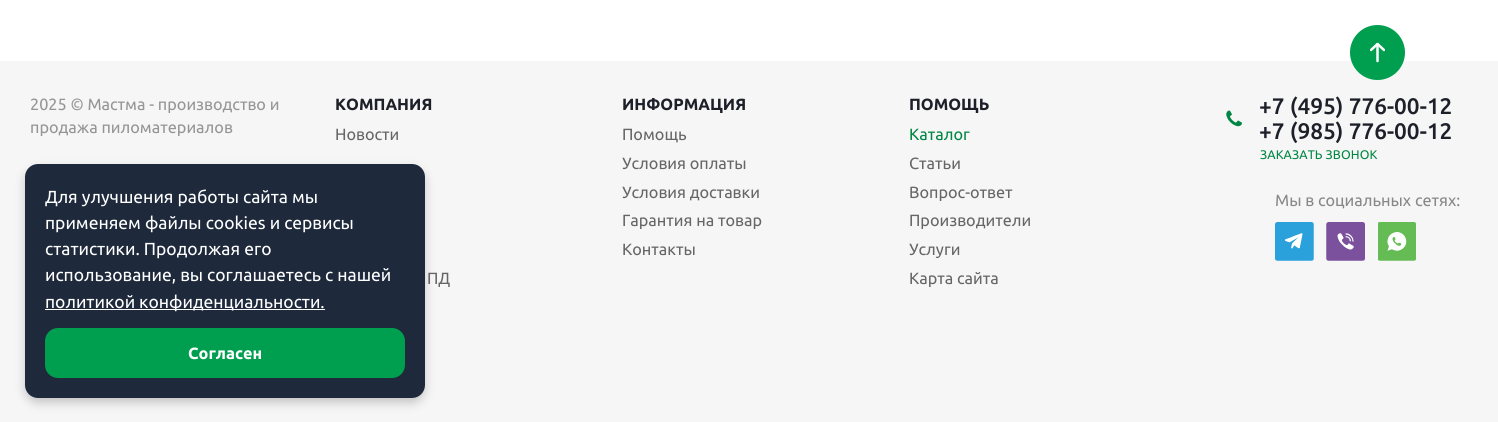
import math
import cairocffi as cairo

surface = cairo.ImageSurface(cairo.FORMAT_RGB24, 1498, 422)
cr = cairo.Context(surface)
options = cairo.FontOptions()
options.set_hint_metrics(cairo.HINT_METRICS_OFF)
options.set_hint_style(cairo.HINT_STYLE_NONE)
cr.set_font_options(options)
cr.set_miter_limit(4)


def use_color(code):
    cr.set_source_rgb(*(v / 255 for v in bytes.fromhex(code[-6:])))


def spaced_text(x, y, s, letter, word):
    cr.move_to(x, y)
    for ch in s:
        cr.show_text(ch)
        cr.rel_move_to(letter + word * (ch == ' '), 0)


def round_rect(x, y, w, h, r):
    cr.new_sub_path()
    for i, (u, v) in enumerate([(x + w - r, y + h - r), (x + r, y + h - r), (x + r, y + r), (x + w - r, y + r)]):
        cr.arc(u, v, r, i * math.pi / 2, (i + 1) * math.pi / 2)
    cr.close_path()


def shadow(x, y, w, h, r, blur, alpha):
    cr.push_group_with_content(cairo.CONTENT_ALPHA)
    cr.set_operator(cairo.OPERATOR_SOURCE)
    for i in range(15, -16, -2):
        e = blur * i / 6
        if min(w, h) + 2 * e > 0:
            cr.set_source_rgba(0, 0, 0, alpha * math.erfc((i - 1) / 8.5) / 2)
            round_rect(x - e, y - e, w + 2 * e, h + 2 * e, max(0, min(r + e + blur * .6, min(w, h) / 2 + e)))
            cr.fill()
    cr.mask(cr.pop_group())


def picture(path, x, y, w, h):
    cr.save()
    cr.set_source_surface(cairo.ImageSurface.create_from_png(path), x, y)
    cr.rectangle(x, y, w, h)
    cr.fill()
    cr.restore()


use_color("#f6f6f7")
cr.paint()
use_color("#ffffff")
cr.rectangle(0, 0, 1498, 61)
cr.fill()
use_color("#009f4f")
cr.arc(1377.5, 52.5, 27.5, 0, 2 * math.pi)
cr.fill()
cr.new_path()
cr.move_to(1377.5, 44)
cr.line_to(1377.5, 61)
use_color("#ffffff")
cr.set_line_width(2.5)
cr.set_line_cap(cairo.LINE_CAP_ROUND)
cr.set_line_join(cairo.LINE_JOIN_ROUND)
cr.stroke()
cr.save()
cr.rectangle(1370, 43, 15, 125)
cr.clip()
cr.new_path()
cr.move_to(1371, 50)
cr.line_to(1377.5, 44)
cr.line_to(1384, 50)
cr.stroke()
cr.restore()
cr.select_font_face("Ubuntu")
cr.set_font_size(16.25)
use_color("#959595")
cr.move_to(30, 110)
cr.show_text("2025 © Мастма - производство и")
cr.move_to(30, 133)
cr.show_text("продажа пиломатериалов")
cr.select_font_face("Ubuntu", cairo.FONT_SLANT_NORMAL, cairo.FONT_WEIGHT_BOLD)
use_color("#1d2029")
cr.move_to(335, 110)
cr.show_text("КОМПАНИЯ")
cr.move_to(622, 110)
cr.show_text("ИНФОРМАЦИЯ")
cr.move_to(909, 110)
cr.show_text("ПОМОЩЬ")
cr.select_font_face("Ubuntu")
use_color("#666666")
cr.move_to(335, 140)
cr.show_text("Новости")
cr.move_to(427, 284)
cr.show_text("ПД")
cr.move_to(622, 140)
cr.show_text("Помощь")
cr.move_to(622, 169)
cr.show_text("Условия оплаты")
cr.move_to(622, 198)
cr.show_text("Условия доставки")
cr.move_to(622, 226)
cr.show_text("Гарантия на товар")
cr.move_to(622, 255)
cr.show_text("Контакты")
use_color("#008642")
cr.move_to(909, 140)
cr.show_text("Каталог")
use_color("#666666")
cr.move_to(909, 169)
cr.show_text("Статьи")
cr.move_to(909, 198)
cr.show_text("Вопрос-ответ")
cr.move_to(909, 226)
cr.show_text("Производители")
cr.move_to(909, 255)
cr.show_text("Услуги")
cr.move_to(909, 284)
cr.show_text("Карта сайта")
picture("img1.png", 1226, 110, 16, 17)
cr.select_font_face("Ubuntu Medium")
cr.set_font_size(22.5)
use_color("#1d2029")
cr.move_to(1259, 114)
cr.show_text("+7 (495) 776-00-12")
cr.move_to(1259, 139)
cr.show_text("+7 (985) 776-00-12")
cr.select_font_face("Ubuntu")
cr.set_font_size(12.5)
use_color("#008642")
spaced_text(1260, 159, "ЗАКАЗАТЬ ЗВОНОК", 0.1, 0)
cr.set_font_size(16.25)
use_color("#888888")
cr.move_to(1275, 206)
cr.show_text("Мы в социальных сетях:")
picture("img2.png", 1275, 222, 39, 39)
picture("img3.png", 1326, 222, 39, 39)
picture("img4.png", 1378, 222, 38, 39)
use_color("#000000")
shadow(25, 169, 400, 234, 13, 5, 0.2)
use_color("#1e293b")
round_rect(25, 164, 400, 234, 13)
cr.fill()
cr.set_font_size(17.5)
use_color("#ffffff")
cr.move_to(45, 203)
cr.show_text("Для улучшения работы сайта мы")
cr.move_to(45, 229)
cr.show_text("применяем файлы cookies и сервисы")
cr.move_to(45, 255)
cr.show_text("статистики. Продолжая его")
cr.move_to(45, 281)
cr.show_text("использование, вы соглашаетесь с нашей")
cr.rectangle(45, 309, 280, 1)
cr.fill()
cr.move_to(45, 308)
cr.show_text("политикой конфиденциальности.")
use_color("#009f4f")
round_rect(45, 328, 360, 50, 13)
cr.fill()
cr.select_font_face("Ubuntu", cairo.FONT_SLANT_NORMAL, cairo.FONT_WEIGHT_BOLD)
cr.set_font_size(16.25)
use_color("#ffffff")
cr.move_to(188, 359)
cr.show_text("Согласен")
surface.write_to_png("result.png")
